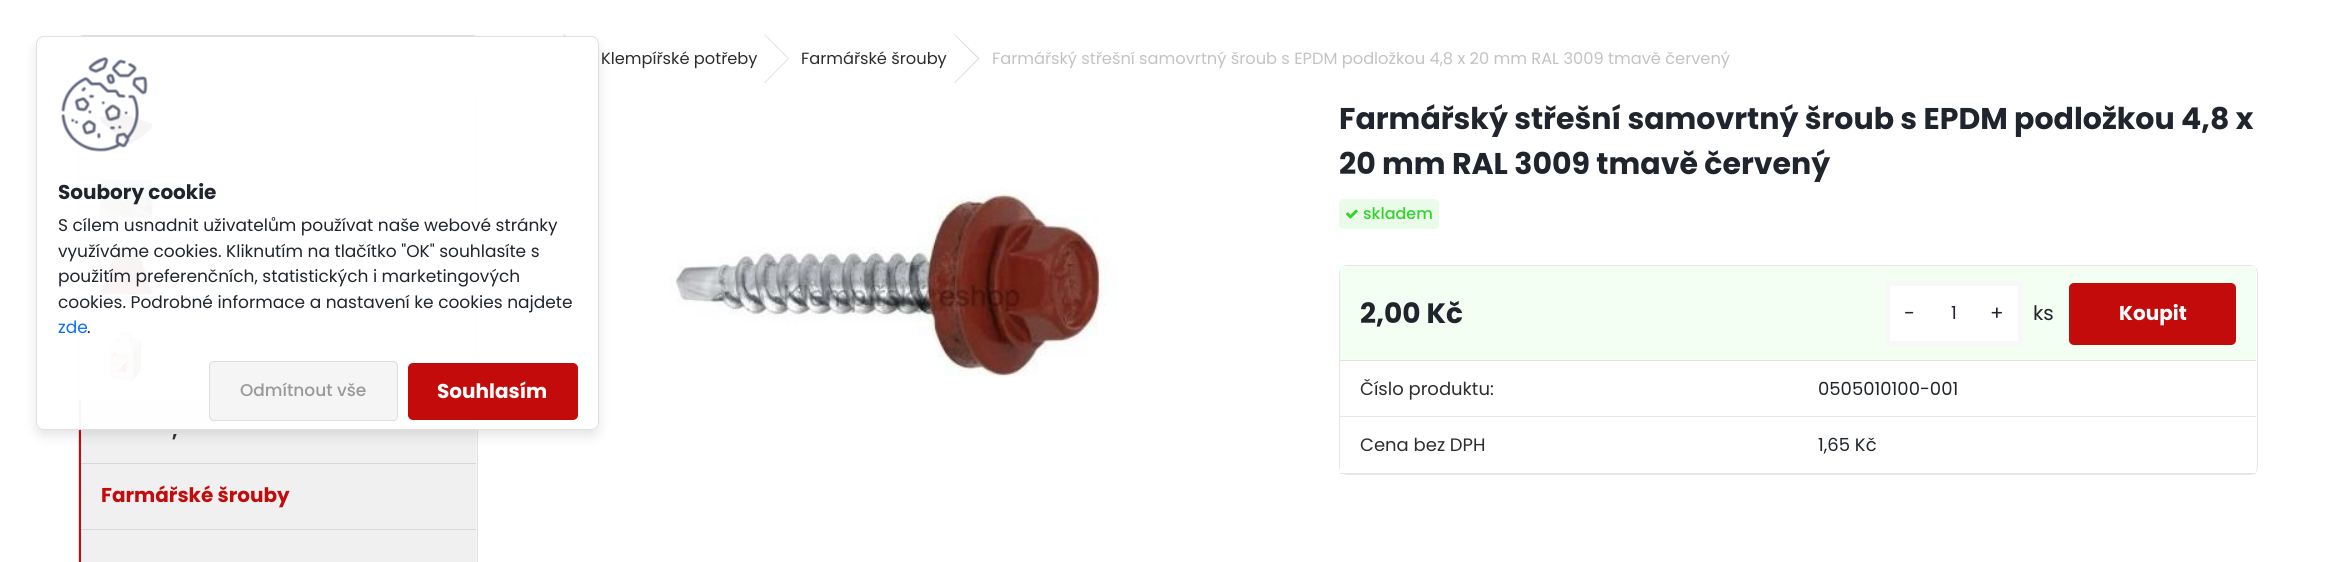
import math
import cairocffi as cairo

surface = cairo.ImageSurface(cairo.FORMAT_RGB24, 2334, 562)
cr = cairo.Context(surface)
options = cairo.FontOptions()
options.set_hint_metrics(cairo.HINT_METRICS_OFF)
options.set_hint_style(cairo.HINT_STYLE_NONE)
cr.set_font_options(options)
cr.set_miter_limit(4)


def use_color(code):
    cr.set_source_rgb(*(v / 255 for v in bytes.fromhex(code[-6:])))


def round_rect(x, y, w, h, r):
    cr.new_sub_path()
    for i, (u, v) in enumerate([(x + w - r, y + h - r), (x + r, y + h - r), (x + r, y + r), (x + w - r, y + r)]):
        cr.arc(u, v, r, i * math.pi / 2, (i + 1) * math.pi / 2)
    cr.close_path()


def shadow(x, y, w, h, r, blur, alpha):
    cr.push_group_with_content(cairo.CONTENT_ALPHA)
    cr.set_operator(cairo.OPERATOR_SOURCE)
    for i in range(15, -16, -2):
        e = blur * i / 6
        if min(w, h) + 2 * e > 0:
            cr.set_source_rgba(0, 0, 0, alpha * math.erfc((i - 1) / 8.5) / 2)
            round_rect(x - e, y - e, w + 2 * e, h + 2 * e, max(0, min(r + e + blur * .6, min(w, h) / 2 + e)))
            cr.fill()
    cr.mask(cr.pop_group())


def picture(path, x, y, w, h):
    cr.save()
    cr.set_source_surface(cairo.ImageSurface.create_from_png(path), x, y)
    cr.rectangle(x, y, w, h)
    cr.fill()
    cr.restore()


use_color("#ffffff")
cr.paint()
use_color("#d7d7d7")
cr.new_path()
cr.move_to(563, 34.5)
cr.line_to(564.5, 34.5)
cr.line_to(588.5, 58.5)
cr.line_to(587, 58.5)
cr.close_path()
cr.fill()
cr.set_source_rgba(0.216, 0.216, 0.216, 0.2)
cr.new_path()
cr.move_to(587, 58.5)
cr.line_to(588.5, 58.5)
cr.line_to(564.5, 83)
cr.line_to(563, 83)
cr.close_path()
cr.fill()
cr.select_font_face("Poppins")
cr.set_font_size(16.25)
use_color("#2d2d2d")
cr.move_to(601, 64)
cr.show_text("Klempířské potřeby")
use_color("#d7d7d7")
cr.new_path()
cr.move_to(764, 34.5)
cr.line_to(765, 34.5)
cr.line_to(789, 58.5)
cr.line_to(788, 58.5)
cr.close_path()
cr.fill()
cr.new_path()
cr.move_to(788, 58.5)
cr.line_to(789, 58.5)
cr.line_to(765, 83)
cr.line_to(764, 83)
cr.close_path()
cr.fill()
use_color("#2d2d2d")
cr.move_to(801, 64)
cr.show_text("Farmářské šrouby")
use_color("#d7d7d7")
cr.new_path()
cr.move_to(954, 34.5)
cr.line_to(955, 34.5)
cr.line_to(979.5, 58.5)
cr.line_to(978, 58.5)
cr.close_path()
cr.fill()
cr.set_source_rgba(0.216, 0.216, 0.216, 0.2)
cr.new_path()
cr.move_to(978, 58.5)
cr.line_to(979.5, 58.5)
cr.line_to(955, 83)
cr.line_to(954, 83)
cr.close_path()
cr.fill()
use_color("#c3c3c3")
cr.move_to(992, 64)
cr.show_text("Farmářský střešní samovrtný šroub s EPDM podložkou 4,8 x 20 mm RAL 3009 tmavě červený")
picture("img1.png", 670, 188, 447, 189)
cr.select_font_face("Poppins", cairo.FONT_SLANT_NORMAL, cairo.FONT_WEIGHT_BOLD)
cr.set_font_size(30)
use_color("#1f242d")
cr.move_to(1339, 129)
cr.show_text("Farmářský střešní samovrtný šroub s EPDM podložkou 4,8 x")
cr.move_to(1339, 174)
cr.show_text("20 mm RAL 3009 tmavě červený")
use_color("#ebfbea")
round_rect(1339, 199, 100, 30, 5)
cr.fill()
picture("img2.png", 1346, 209, 12, 10)
cr.select_font_face("Poppins Medium")
cr.set_font_size(16)
use_color("#34d22f")
cr.move_to(1363, 219)
cr.show_text("skladem")
round_rect(1339.5, 265.5, 918, 209, 7.5)
use_color("#e6e6e6")
cr.set_line_width(1)
cr.stroke()
use_color("#ffffff")
cr.rectangle(1340, 468, 916, 5)
cr.fill()
use_color("#f2fff2")
cr.rectangle(1340, 266, 916, 94)
cr.fill()
use_color("#dae6da")
cr.rectangle(1340, 360, 916, 1)
cr.fill()
cr.select_font_face("Poppins", cairo.FONT_SLANT_NORMAL, cairo.FONT_WEIGHT_BOLD)
cr.set_font_size(28)
use_color("#1f242d")
cr.move_to(1360, 323)
cr.show_text("2,00 Kč")
use_color("#ffffff")
round_rect(1887.5, 283.5, 133, 60, 2.5)
cr.fill_preserve()
use_color("#f8f8f8")
cr.set_line_width(5)
cr.stroke()
cr.select_font_face("Poppins")
cr.set_font_size(20)
use_color("#1f242d")
cr.move_to(1904, 320)
cr.show_text("-")
cr.set_font_size(18)
cr.move_to(1951, 319)
cr.show_text("1")
cr.set_font_size(20)
cr.move_to(1990, 320)
cr.show_text("+")
cr.move_to(2033, 320)
cr.show_text("ks")
use_color("#c40b0b")
round_rect(2069, 283, 167, 62, 5)
cr.fill()
cr.select_font_face("Poppins", cairo.FONT_SLANT_NORMAL, cairo.FONT_WEIGHT_BOLD)
use_color("#ffffff")
cr.move_to(2119, 320)
cr.show_text("Koupit")
use_color("#e6e6e6")
cr.rectangle(1340, 416, 916, 1)
cr.fill()
cr.select_font_face("Poppins")
cr.set_font_size(18)
use_color("#2d2d2d")
cr.move_to(1360, 395)
cr.show_text("Číslo produktu:")
use_color("#1f242d")
cr.move_to(1818, 395)
cr.show_text("0505010100-001")
use_color("#e6e6e6")
cr.rectangle(1340, 473, 916, 1)
cr.fill()
use_color("#2d2d2d")
cr.move_to(1360, 451)
cr.show_text("Cena bez DPH")
use_color("#1f242d")
cr.move_to(1818, 451)
cr.show_text("1,65 Kč")
use_color("#f8f8f8")
round_rect(78, 35, 400, 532, 5)
cr.fill()
round_rect(78.5, 35.5, 399, 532, 4.5)
cr.set_source_rgba(0, 0, 0, 0.1)
cr.set_line_width(1)
cr.stroke()
use_color("#dfdfdf")
cr.rectangle(196, 65, 260, 1)
cr.fill()
cr.new_path()
cr.move_to(476, 95)
cr.line_to(476, 162)
cr.line_to(475, 161)
cr.line_to(475, 95)
cr.close_path()
cr.fill()
cr.set_source_rgba(0, 0, 0, 0.1)
cr.new_path()
cr.move_to(476, 162)
cr.line_to(79, 162)
cr.line_to(80, 161)
cr.line_to(475, 161)
cr.close_path()
cr.fill()
cr.new_path()
cr.move_to(79, 162)
cr.line_to(79, 95)
cr.line_to(80, 95)
cr.line_to(80, 161)
cr.close_path()
cr.fill()
picture("img3.png", 100, 112, 53, 33)
use_color("#dfdfdf")
cr.new_path()
cr.move_to(476, 162)
cr.line_to(476, 235)
cr.line_to(475, 234)
cr.line_to(475, 162)
cr.close_path()
cr.fill()
cr.set_source_rgba(0, 0, 0, 0.1)
cr.new_path()
cr.move_to(476, 235)
cr.line_to(79, 235)
cr.line_to(80, 234)
cr.line_to(475, 234)
cr.close_path()
cr.fill()
cr.new_path()
cr.move_to(79, 235)
cr.line_to(79, 162)
cr.line_to(80, 162)
cr.line_to(80, 234)
cr.close_path()
cr.fill()
picture("img4.png", 100, 180, 53, 38)
use_color("#dfdfdf")
cr.new_path()
cr.move_to(476, 235)
cr.line_to(476, 312)
cr.line_to(475, 311)
cr.line_to(475, 235)
cr.close_path()
cr.fill()
cr.set_source_rgba(0, 0, 0, 0.1)
cr.new_path()
cr.move_to(476, 312)
cr.line_to(79, 312)
cr.line_to(80, 311)
cr.line_to(475, 311)
cr.close_path()
cr.fill()
cr.new_path()
cr.move_to(79, 312)
cr.line_to(79, 235)
cr.line_to(80, 235)
cr.line_to(80, 311)
cr.close_path()
cr.fill()
picture("img5.png", 100, 252, 53, 43)
use_color("#dfdfdf")
cr.new_path()
cr.move_to(476, 312)
cr.line_to(476, 400)
cr.line_to(475, 399)
cr.line_to(475, 312)
cr.close_path()
cr.fill()
cr.set_source_rgba(0, 0, 0, 0.1)
cr.new_path()
cr.move_to(476, 400)
cr.line_to(79, 400)
cr.line_to(80, 399)
cr.line_to(475, 399)
cr.close_path()
cr.fill()
cr.new_path()
cr.move_to(79, 400)
cr.line_to(79, 312)
cr.line_to(80, 312)
cr.line_to(80, 399)
cr.close_path()
cr.fill()
picture("img6.png", 100, 330, 52, 52)
use_color("#f0f0f0")
cr.rectangle(81, 400, 395, 162)
cr.fill()
use_color("#c40b0b")
cr.new_path()
cr.move_to(79, 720)
cr.line_to(79, 400)
cr.line_to(81, 400)
cr.line_to(81, 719)
cr.close_path()
cr.fill()
use_color("#d8d8d8")
cr.rectangle(81, 463, 395, 1)
cr.fill()
cr.select_font_face("Poppins", cairo.FONT_SLANT_NORMAL, cairo.FONT_WEIGHT_BOLD)
cr.set_font_size(19)
use_color("#333333")
cr.move_to(172, 437)
cr.show_text(",")
use_color("#d8d8d8")
cr.rectangle(81, 529, 395, 1)
cr.fill()
cr.set_font_size(20)
use_color("#c40b0b")
cr.move_to(101, 502)
cr.show_text("Farmářské šrouby")
cr.save()
cr.set_fill_rule(cairo.FILL_RULE_EVEN_ODD)
cr.new_path()
cr.move_to(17, 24)
cr.line_to(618, 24)
cr.line_to(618, 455)
cr.line_to(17, 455)
cr.close_path()
cr.move_to(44, 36)
cr.line_to(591, 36)
cr.curve_to(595.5, 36, 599, 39.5, 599, 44)
cr.line_to(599, 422)
cr.curve_to(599, 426.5, 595.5, 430, 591, 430)
cr.line_to(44, 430)
cr.curve_to(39.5, 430, 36, 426.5, 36, 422)
cr.line_to(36, 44)
cr.curve_to(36, 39.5, 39.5, 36, 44, 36)
cr.close_path()
cr.clip()
use_color("#000000")
shadow(36, 43, 563, 393, 8, 6, 0.1)
cr.restore()
cr.set_source_rgba(1, 1, 1, 0.95)
round_rect(36.5, 36.5, 562, 393, 7.5)
cr.fill_preserve()
use_color("#e0e0e0")
cr.stroke()
picture("img7.png", 61, 57, 87, 95)
use_color("#1f242d")
cr.move_to(58, 199)
cr.show_text("Soubory cookie")
cr.select_font_face("Poppins")
cr.set_font_size(17)
cr.move_to(58, 231)
cr.show_text("S cílem usnadnit uživatelům používat naše webové stránky")
cr.move_to(58, 257)
cr.show_text("využíváme cookies. Kliknutím na tlačítko \"OK\" souhlasíte s")
cr.move_to(58, 282)
cr.show_text("použitím preferenčních, statistických i marketingových")
cr.move_to(58, 308)
cr.show_text("cookies. Podrobné informace a nastavení ke cookies najdete")
use_color("#0d6efd")
cr.move_to(58, 333)
cr.show_text("zde")
use_color("#1f242d")
cr.move_to(87, 333)
cr.show_text(".")
use_color("#f5f5f5")
round_rect(209, 361, 189, 60, 5)
cr.fill()
round_rect(209.5, 361.5, 188, 59, 4.5)
cr.set_source_rgba(0, 0, 0, 0.1)
cr.stroke()
cr.select_font_face("Poppins Medium")
use_color("#999999")
cr.move_to(240, 396)
cr.show_text("Odmítnout vše")
use_color("#c40b0b")
round_rect(408, 363, 170, 57, 5)
cr.fill()
cr.select_font_face("Poppins", cairo.FONT_SLANT_NORMAL, cairo.FONT_WEIGHT_BOLD)
cr.set_font_size(20)
use_color("#ffffff")
cr.move_to(437, 398)
cr.show_text("Souhlasím")
surface.write_to_png("result.png")
